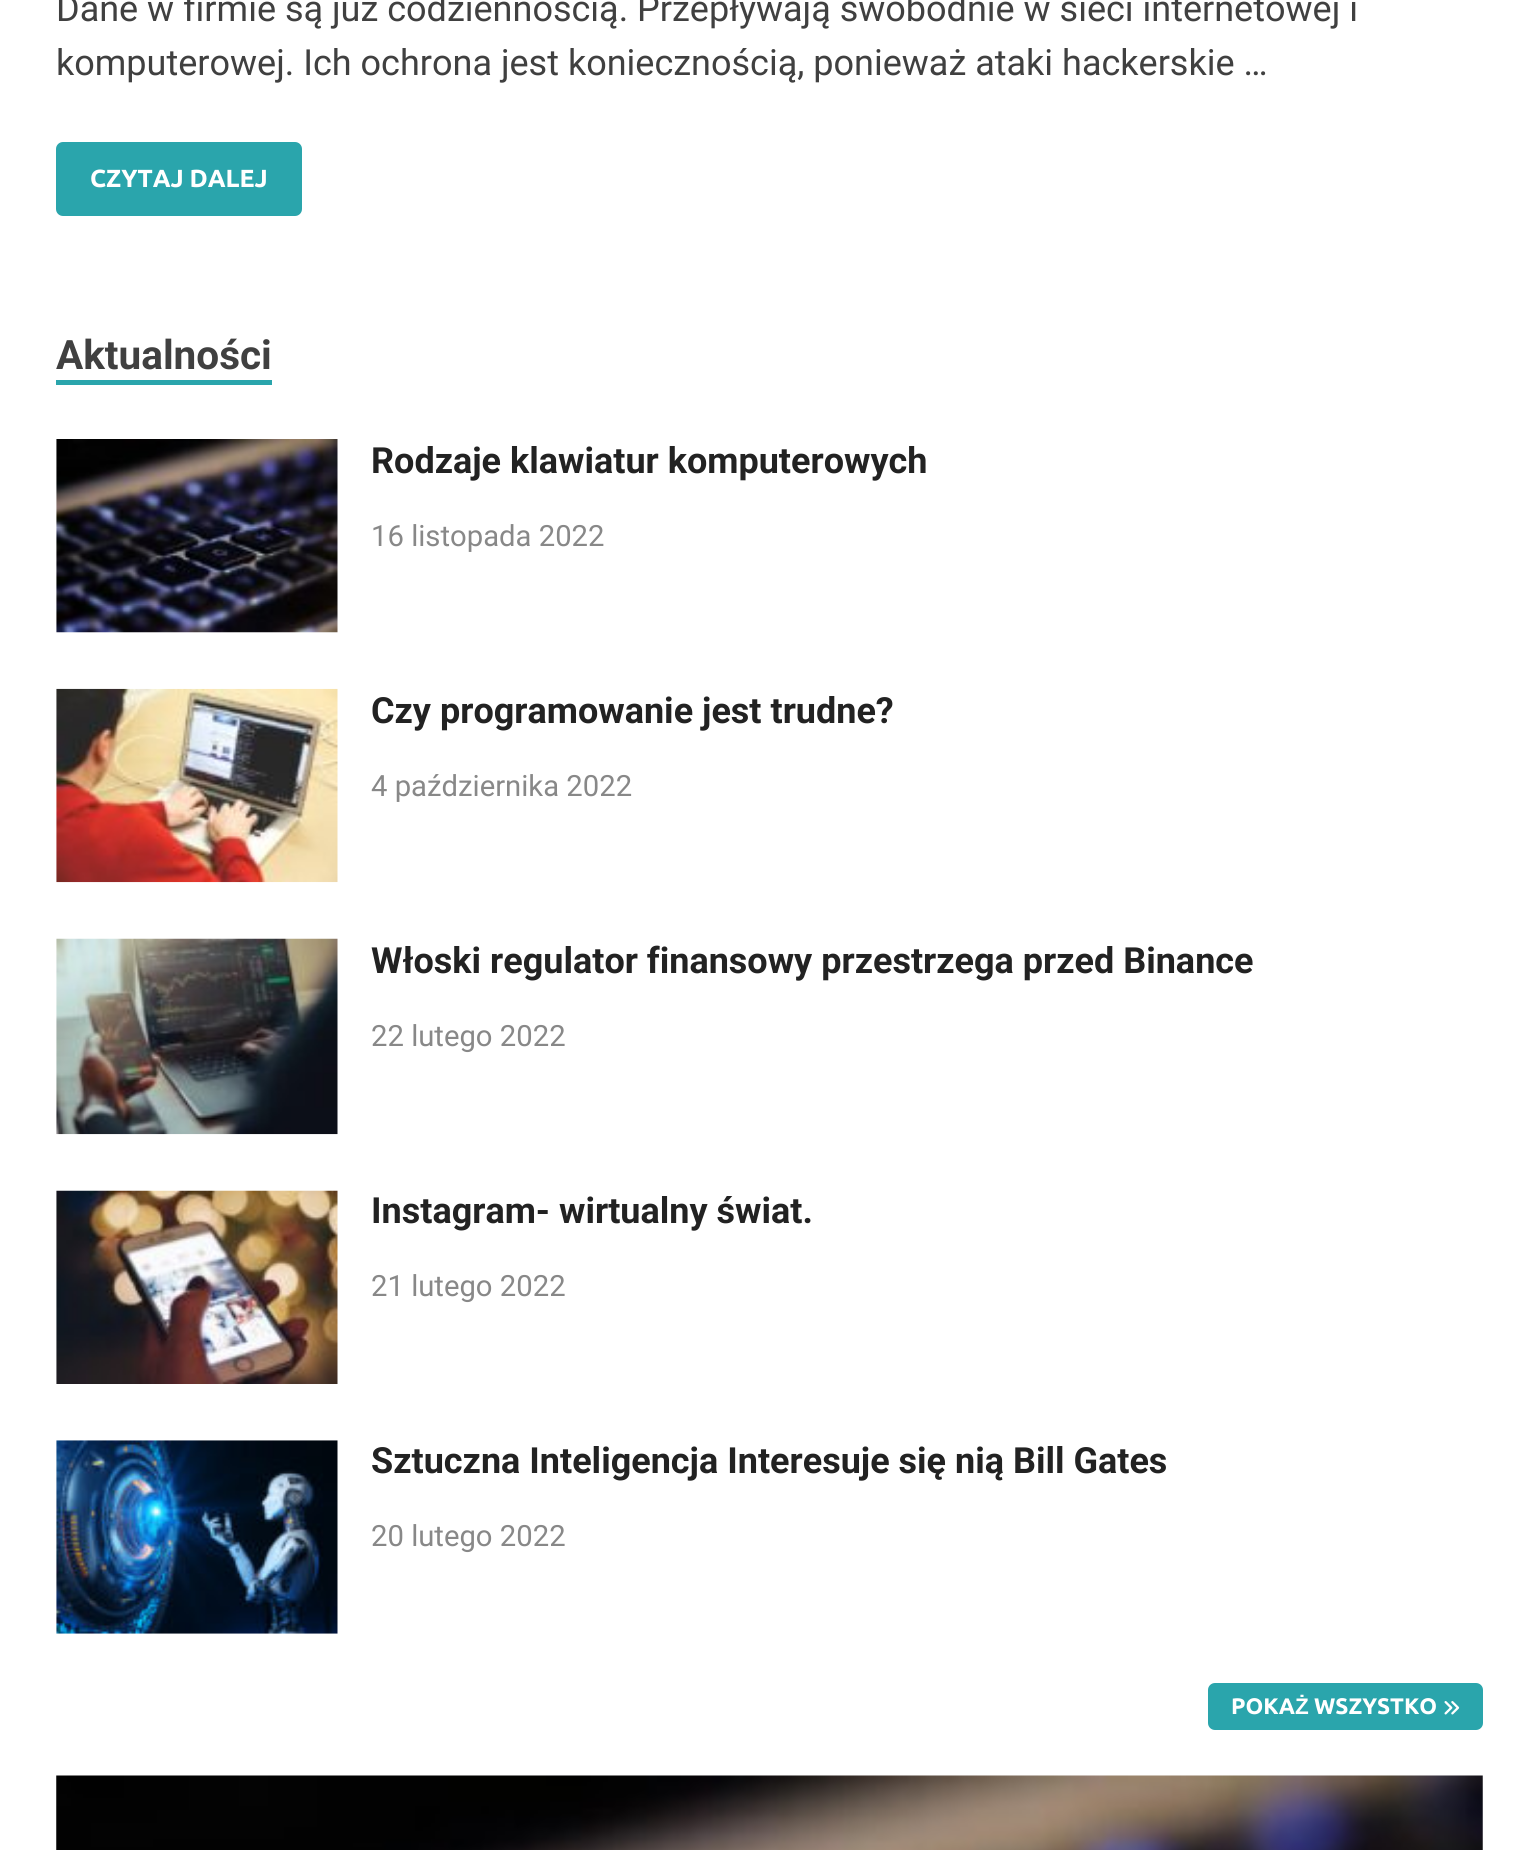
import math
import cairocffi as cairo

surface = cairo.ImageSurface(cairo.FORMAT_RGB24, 1539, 1850)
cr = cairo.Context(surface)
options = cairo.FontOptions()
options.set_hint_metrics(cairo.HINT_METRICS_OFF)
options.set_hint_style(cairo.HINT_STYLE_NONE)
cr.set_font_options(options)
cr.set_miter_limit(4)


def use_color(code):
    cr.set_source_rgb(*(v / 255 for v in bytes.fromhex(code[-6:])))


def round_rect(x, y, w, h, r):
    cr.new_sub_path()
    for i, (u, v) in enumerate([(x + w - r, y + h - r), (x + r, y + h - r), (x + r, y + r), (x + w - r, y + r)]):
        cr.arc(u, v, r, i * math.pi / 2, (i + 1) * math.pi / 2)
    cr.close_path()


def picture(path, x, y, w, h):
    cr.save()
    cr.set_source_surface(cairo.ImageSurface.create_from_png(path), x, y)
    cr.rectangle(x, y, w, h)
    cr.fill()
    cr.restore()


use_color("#ffffff")
cr.paint()
cr.select_font_face("Roboto")
cr.set_font_size(36)
use_color("#404040")
cr.move_to(56, 21)
cr.show_text("Dane w firmie są już codziennością. Przepływają swobodnie w sieci internetowej i")
cr.move_to(56, 75)
cr.show_text("komputerowej. Ich ochrona jest koniecznością, ponieważ ataki hackerskie …")
use_color("#2aa5ac")
round_rect(56, 142, 246, 74, 7)
cr.fill()
cr.select_font_face("Ubuntu", cairo.FONT_SLANT_NORMAL, cairo.FONT_WEIGHT_BOLD)
cr.set_font_size(24.75)
use_color("#ffffff")
cr.move_to(90, 187)
cr.show_text("CZYTAJ DALEJ")
use_color("#2aa5ac")
cr.rectangle(56, 380, 216, 5)
cr.fill()
cr.select_font_face("Roboto", cairo.FONT_SLANT_NORMAL, cairo.FONT_WEIGHT_BOLD)
cr.set_font_size(40.5)
use_color("#404040")
cr.move_to(56, 369)
cr.show_text("Aktualności")
picture("img1.png", 56, 439, 282, 194)
cr.set_font_size(36)
use_color("#222222")
cr.move_to(371, 473)
cr.show_text("Rodzaje klawiatur komputerowych")
cr.select_font_face("Roboto")
cr.set_font_size(29.25)
use_color("#888888")
cr.move_to(371, 546)
cr.show_text("16 listopada 2022")
picture("img2.png", 56, 688, 282, 195)
cr.select_font_face("Roboto", cairo.FONT_SLANT_NORMAL, cairo.FONT_WEIGHT_BOLD)
cr.set_font_size(36)
use_color("#222222")
cr.move_to(371, 723)
cr.show_text("Czy programowanie jest trudne?")
cr.select_font_face("Roboto")
cr.set_font_size(29.25)
use_color("#888888")
cr.move_to(371, 796)
cr.show_text("4 października 2022")
picture("img3.png", 56, 938, 282, 197)
cr.select_font_face("Roboto", cairo.FONT_SLANT_NORMAL, cairo.FONT_WEIGHT_BOLD)
cr.set_font_size(36)
use_color("#222222")
cr.move_to(371, 973)
cr.show_text("Włoski regulator finansowy przestrzega przed Binance")
cr.select_font_face("Roboto")
cr.set_font_size(29.25)
use_color("#888888")
cr.move_to(371, 1046)
cr.show_text("22 lutego 2022")
picture("img4.png", 56, 1190, 282, 194)
cr.select_font_face("Roboto", cairo.FONT_SLANT_NORMAL, cairo.FONT_WEIGHT_BOLD)
cr.set_font_size(36)
use_color("#222222")
cr.move_to(371, 1223)
cr.show_text("Instagram- wirtualny świat.")
cr.select_font_face("Roboto")
cr.set_font_size(29.25)
use_color("#888888")
cr.move_to(371, 1296)
cr.show_text("21 lutego 2022")
picture("img5.png", 56, 1440, 282, 194)
cr.select_font_face("Roboto", cairo.FONT_SLANT_NORMAL, cairo.FONT_WEIGHT_BOLD)
cr.set_font_size(36)
use_color("#222222")
cr.move_to(371, 1473)
cr.show_text("Sztuczna Inteligencja Interesuje się nią Bill Gates")
cr.select_font_face("Roboto")
cr.set_font_size(29.25)
use_color("#888888")
cr.move_to(371, 1546)
cr.show_text("20 lutego 2022")
use_color("#2aa5ac")
round_rect(1208, 1683, 275, 47, 7)
cr.fill()
cr.select_font_face("Ubuntu", cairo.FONT_SLANT_NORMAL, cairo.FONT_WEIGHT_BOLD)
cr.set_font_size(22.5)
use_color("#ffffff")
cr.move_to(1231, 1714)
cr.show_text("POKA")
cr.select_font_face("Liberation Sans", cairo.FONT_SLANT_NORMAL, cairo.FONT_WEIGHT_BOLD)
cr.move_to(1295, 1714)
cr.show_text("Ż")
cr.select_font_face("Ubuntu", cairo.FONT_SLANT_NORMAL, cairo.FONT_WEIGHT_BOLD)
cr.move_to(1314, 1714)
cr.show_text("WSZYSTKO")
picture("img6.png", 1444, 1701, 16, 14)
picture("img7.png", 56, 1775, 1427, 75)
surface.write_to_png("result.png")
